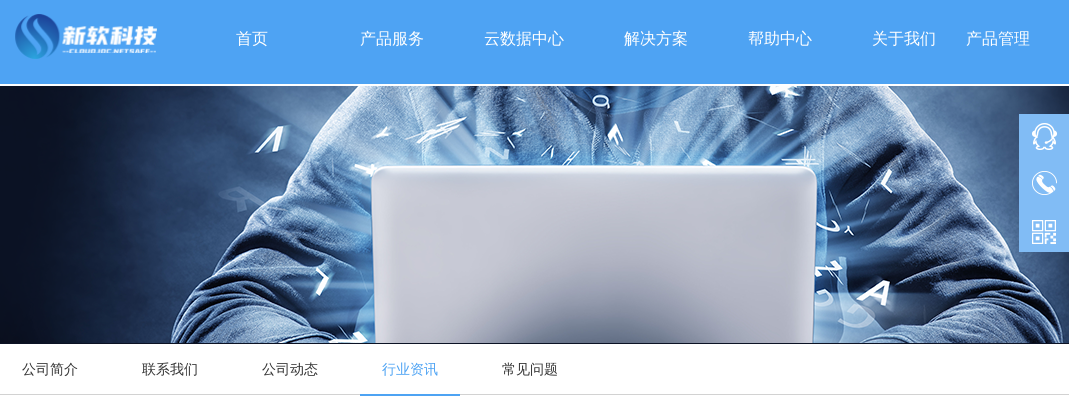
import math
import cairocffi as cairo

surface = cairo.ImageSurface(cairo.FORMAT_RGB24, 1069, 412)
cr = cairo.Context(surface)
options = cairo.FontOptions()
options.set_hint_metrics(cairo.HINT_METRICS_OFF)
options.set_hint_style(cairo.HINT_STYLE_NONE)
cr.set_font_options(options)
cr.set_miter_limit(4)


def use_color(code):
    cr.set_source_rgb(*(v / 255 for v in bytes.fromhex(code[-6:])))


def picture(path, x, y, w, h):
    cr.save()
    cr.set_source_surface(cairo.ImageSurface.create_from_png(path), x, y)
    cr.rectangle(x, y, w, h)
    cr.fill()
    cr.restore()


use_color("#ffffff")
cr.paint()
use_color("#4ea3f3")
cr.rectangle(0, 0, 1069, 84)
cr.fill()
picture("img1.png", 15, 14, 142, 45)
cr.select_font_face("WenQuanYi Zen Hei Medium")
cr.set_font_size(16)
use_color("#ffffff")
cr.move_to(236, 44)
cr.show_text("首页")
cr.move_to(360, 44)
cr.show_text("产品服务")
cr.move_to(484, 44)
cr.show_text("云数据中心")
cr.move_to(624, 44)
cr.show_text("解决方案")
cr.move_to(748, 44)
cr.show_text("帮助中心")
cr.move_to(872, 44)
cr.show_text("关于我们")
cr.move_to(966, 44)
cr.show_text("产品管理")
use_color("#0b1224")
cr.rectangle(0, 343, 1069, 1)
cr.fill()
picture("img2.png", 0, 86, 1069, 257)
use_color("#81bcf5")
cr.rectangle(1019, 114, 50, 138)
cr.fill()
picture("img3.png", 1032, 123, 25, 27)
picture("img4.png", 1032, 171, 25, 24)
picture("img5.png", 1032, 220, 24, 24)
use_color("#d2d2d2")
cr.rectangle(0, 394, 1069, 1)
cr.fill()
cr.set_font_size(14)
use_color("#333333")
cr.move_to(22, 374)
cr.show_text("公司简介")
cr.move_to(142, 374)
cr.show_text("联系我们")
cr.move_to(262, 374)
cr.show_text("公司动态")
use_color("#4ea3f3")
cr.rectangle(360, 394, 100, 2)
cr.fill()
cr.move_to(382, 374)
cr.show_text("行业资讯")
use_color("#333333")
cr.move_to(502, 374)
cr.show_text("常见问题")
surface.write_to_png("result.png")
